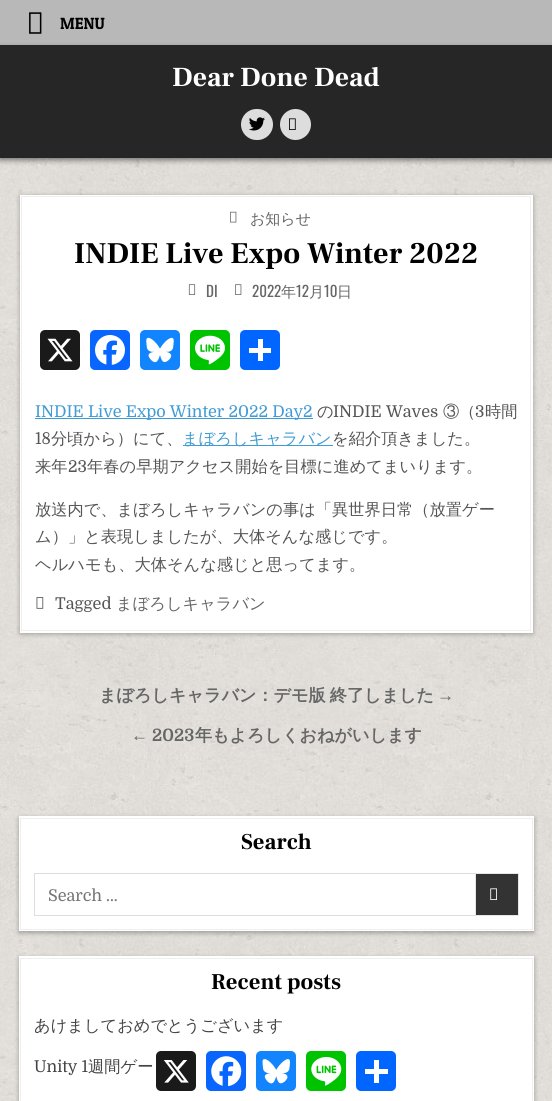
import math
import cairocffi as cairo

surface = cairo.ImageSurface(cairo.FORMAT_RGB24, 552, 1101)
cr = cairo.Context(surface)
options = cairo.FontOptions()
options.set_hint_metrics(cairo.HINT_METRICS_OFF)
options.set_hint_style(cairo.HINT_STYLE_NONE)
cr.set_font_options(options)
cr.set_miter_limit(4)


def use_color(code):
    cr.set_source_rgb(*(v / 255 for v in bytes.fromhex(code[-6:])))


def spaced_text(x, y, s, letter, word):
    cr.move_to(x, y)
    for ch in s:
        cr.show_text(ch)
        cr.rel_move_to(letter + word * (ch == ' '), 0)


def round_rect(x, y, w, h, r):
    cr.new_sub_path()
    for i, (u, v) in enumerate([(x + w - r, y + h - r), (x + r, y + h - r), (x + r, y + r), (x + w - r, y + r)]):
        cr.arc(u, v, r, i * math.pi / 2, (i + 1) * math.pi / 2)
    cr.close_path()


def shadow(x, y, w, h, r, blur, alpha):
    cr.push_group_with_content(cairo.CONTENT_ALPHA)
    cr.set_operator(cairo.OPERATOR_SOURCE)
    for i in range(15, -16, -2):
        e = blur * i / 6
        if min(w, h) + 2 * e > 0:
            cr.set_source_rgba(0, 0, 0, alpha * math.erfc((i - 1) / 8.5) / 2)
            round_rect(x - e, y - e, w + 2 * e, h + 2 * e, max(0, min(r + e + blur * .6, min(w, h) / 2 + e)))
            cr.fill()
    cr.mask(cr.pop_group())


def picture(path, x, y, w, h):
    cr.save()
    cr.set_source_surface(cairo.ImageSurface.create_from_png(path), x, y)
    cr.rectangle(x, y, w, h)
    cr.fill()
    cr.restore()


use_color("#ffffff")
cr.paint()
picture("img1.png", 0, 158, 552, 943)
use_color("#b8b8b8")
cr.rectangle(0, 0, 552, 45)
cr.fill()
picture("img2.png", 29, 12, 13, 22)
cr.select_font_face("Patua One")
cr.set_font_size(16.25)
use_color("#000000")
cr.move_to(60, 29)
cr.show_text("MENU")
use_color("#000000")
shadow(0, 48, 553, 112, 0, 3, 0.5)
use_color("#262626")
cr.rectangle(0, 45, 552, 113)
cr.fill()
cr.select_font_face("Frank Ruhl Libre", cairo.FONT_SLANT_NORMAL, cairo.FONT_WEIGHT_BOLD)
cr.set_font_size(27.5)
use_color("#ffffff")
cr.move_to(172, 86)
cr.show_text("Dear Done Dead")
use_color("#dddddd")
round_rect(241, 109, 32, 31, 15.5)
cr.fill()
picture("img3.png", 249, 117, 16, 14)
cr.arc(295.5, 124.5, 15.5, 0, 2 * math.pi)
cr.fill()
picture("img4.png", 289, 118, 7, 12)
use_color("#000000")
shadow(20, 196, 513, 438, 0, 2.5, 0.3)
use_color("#ffffff")
cr.rectangle(20, 195, 513, 438)
cr.fill()
cr.rectangle(21.5, 196.5, 509, 434)
use_color("#efefef")
cr.set_line_width(1)
cr.stroke()
picture("img5.png", 230, 211, 7, 12)
cr.select_font_face("WenQuanYi Zen Hei Medium")
cr.set_font_size(15)
use_color("#666666")
cr.move_to(250, 224)
cr.show_text("お知らせ")
cr.select_font_face("Frank Ruhl Libre", cairo.FONT_SLANT_NORMAL, cairo.FONT_WEIGHT_BOLD)
cr.set_font_size(30)
use_color("#000000")
cr.move_to(74, 263)
cr.show_text("INDIE Live Expo Winter 2022")
picture("img6.png", 188, 284, 8, 11)
cr.select_font_face("Oswald")
cr.set_font_size(15)
use_color("#666666")
cr.move_to(206, 297)
cr.show_text("DI")
picture("img7.png", 235, 284, 7, 11)
cr.move_to(252, 297)
cr.show_text("2022")
cr.select_font_face("WenQuanYi Zen Hei Medium")
cr.move_to(281, 297)
cr.show_text("年")
cr.select_font_face("Oswald")
cr.move_to(296, 297)
cr.show_text("12")
cr.select_font_face("WenQuanYi Zen Hei Medium")
cr.move_to(309, 297)
cr.show_text("月")
cr.select_font_face("Oswald")
cr.move_to(324, 297)
cr.show_text("10")
cr.select_font_face("WenQuanYi Zen Hei Medium")
cr.move_to(337, 297)
cr.show_text("日")
use_color("#1a1a1a")
round_rect(40, 330, 40, 40, 5)
cr.fill()
picture("img8.png", 47, 338, 26, 24)
use_color("#0866ff")
round_rect(90, 330, 40, 40, 5)
cr.fill()
picture("img9.png", 95, 335, 30, 30)
use_color("#1285fe")
round_rect(140, 330, 40, 40, 5)
cr.fill()
picture("img10.png", 146, 337, 28, 26)
use_color("#00c300")
round_rect(190, 330, 40, 40, 5)
cr.fill()
picture("img11.png", 195, 335, 30, 30)
use_color("#0166ff")
round_rect(240, 330, 40, 40, 5)
cr.fill()
use_color("#ffffff")
cr.rectangle(258, 339, 5, 22)
cr.fill()
cr.rectangle(249, 348, 22, 5)
cr.fill()
use_color("#409bd4")
cr.rectangle(35, 418, 278, 1)
cr.fill()
cr.select_font_face("Domine")
cr.set_font_size(16.25)
cr.move_to(35, 417)
cr.show_text("INDIE Live Expo Winter 2022 Day2")
cr.select_font_face("WenQuanYi Zen Hei Medium")
use_color("#555555")
cr.move_to(317, 417)
cr.show_text("の")
cr.select_font_face("Domine")
cr.move_to(333, 417)
cr.show_text("INDIE Waves")
cr.select_font_face("WenQuanYi Zen Hei Medium")
cr.move_to(443, 417)
cr.show_text("③（")
cr.select_font_face("Domine")
cr.move_to(475, 417)
cr.show_text("3")
cr.select_font_face("WenQuanYi Zen Hei Medium")
cr.move_to(485, 417)
cr.show_text("時間")
cr.select_font_face("Domine")
cr.move_to(35, 444)
cr.show_text("18")
cr.select_font_face("WenQuanYi Zen Hei Medium")
cr.move_to(51, 444)
cr.show_text("分頃から）にて、")
use_color("#409bd4")
cr.rectangle(183, 445, 150, 1)
cr.fill()
cr.move_to(182, 444)
cr.show_text("まぼろしキャラバン")
use_color("#555555")
cr.move_to(332, 444)
cr.show_text("を紹介頂きました。")
cr.move_to(35, 472)
cr.show_text("来年")
cr.select_font_face("Domine")
cr.move_to(68, 472)
cr.show_text("23")
cr.select_font_face("WenQuanYi Zen Hei Medium")
cr.move_to(87, 472)
cr.show_text("年春の早期アクセス開始を目標に進めてまいります。")
cr.move_to(35, 515)
cr.show_text("放送内で、まぼろしキャラバンの事は「異世界日常（放置ゲー")
cr.move_to(35, 542)
cr.show_text("ム）」と表現しましたが、大体そんな感じです。")
cr.move_to(35, 570)
cr.show_text("ヘルハモも、大体そんな感じと思ってます。")
picture("img12.png", 36, 597, 8, 12)
cr.select_font_face("Domine")
cr.move_to(55, 609)
cr.show_text("Tagged")
cr.select_font_face("WenQuanYi Zen Hei Medium")
use_color("#666666")
cr.move_to(116, 609)
cr.show_text("まぼろしキャラバン")
cr.select_font_face("WenQuanYi Zen Hei", cairo.FONT_SLANT_NORMAL, cairo.FONT_WEIGHT_BOLD)
cr.set_font_size(17.1)
spaced_text(99, 701, "まぼろしキャラバン：デモ版 終了しました", 0, -1)
cr.select_font_face("Liberation Sans", cairo.FONT_SLANT_NORMAL, cairo.FONT_WEIGHT_BOLD)
cr.move_to(437, 701)
cr.show_text("→")
cr.move_to(131, 741)
cr.show_text("←")
cr.select_font_face("Domine", cairo.FONT_SLANT_NORMAL, cairo.FONT_WEIGHT_BOLD)
cr.move_to(152, 741)
cr.show_text("2023")
cr.select_font_face("WenQuanYi Zen Hei", cairo.FONT_SLANT_NORMAL, cairo.FONT_WEIGHT_BOLD)
cr.move_to(195, 741)
cr.show_text("年もよろしくおねがいします")
use_color("#000000")
shadow(19, 818, 515, 115, 0, 2.5, 0.3)
use_color("#ffffff")
cr.rectangle(19, 816, 515, 115)
cr.fill()
cr.rectangle(20.5, 818.5, 512, 111)
use_color("#efefef")
cr.stroke()
cr.select_font_face("Frank Ruhl Libre", cairo.FONT_SLANT_NORMAL, cairo.FONT_WEIGHT_BOLD)
cr.set_font_size(22.5)
use_color("#000000")
cr.move_to(241, 849)
cr.show_text("Search")
cr.rectangle(34.5, 873.5, 484, 42)
use_color("#dddddd")
cr.stroke()
cr.select_font_face("Domine")
cr.set_font_size(16.25)
use_color("#757575")
cr.move_to(48, 901)
cr.show_text("Search …")
use_color("#333333")
cr.rectangle(475.5, 873.5, 43, 42)
cr.fill_preserve()
use_color("#e6e6e6")
cr.stroke()
picture("img13.png", 490, 888, 7, 12)
use_color("#000000")
shadow(19, 958, 515, 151, 0, 2.5, 0.3)
use_color("#ffffff")
cr.rectangle(19, 956, 515, 145)
cr.fill()
cr.rectangle(20.5, 958.5, 512, 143)
use_color("#efefef")
cr.stroke()
cr.select_font_face("Frank Ruhl Libre", cairo.FONT_SLANT_NORMAL, cairo.FONT_WEIGHT_BOLD)
cr.set_font_size(22.5)
use_color("#000000")
cr.move_to(211, 989)
cr.show_text("Recent posts")
cr.select_font_face("WenQuanYi Zen Hei Medium")
cr.set_font_size(16.25)
use_color("#444444")
cr.move_to(34, 1031)
cr.show_text("あけましておめでとうございます")
cr.select_font_face("Domine")
cr.move_to(34, 1072)
cr.show_text("Unity 1")
cr.select_font_face("WenQuanYi Zen Hei Medium")
cr.move_to(88, 1072)
cr.show_text("週間ゲー")
use_color("#1a1a1a")
round_rect(156, 1051, 40, 40, 5)
cr.fill()
picture("img14.png", 163, 1060, 26, 23)
use_color("#0866ff")
round_rect(206, 1051, 40, 40, 5)
cr.fill()
picture("img15.png", 211, 1056, 31, 31)
use_color("#1285fe")
round_rect(256, 1051, 40, 40, 5)
cr.fill()
picture("img16.png", 262, 1059, 28, 25)
use_color("#00c300")
round_rect(306, 1051, 40, 40, 5)
cr.fill()
picture("img17.png", 311, 1057, 31, 29)
use_color("#0166ff")
round_rect(356, 1051, 40, 40, 5)
cr.fill()
use_color("#ffffff")
cr.rectangle(374, 1060, 5, 23)
cr.fill()
cr.rectangle(365, 1069, 23, 5)
cr.fill()
surface.write_to_png("result.png")
